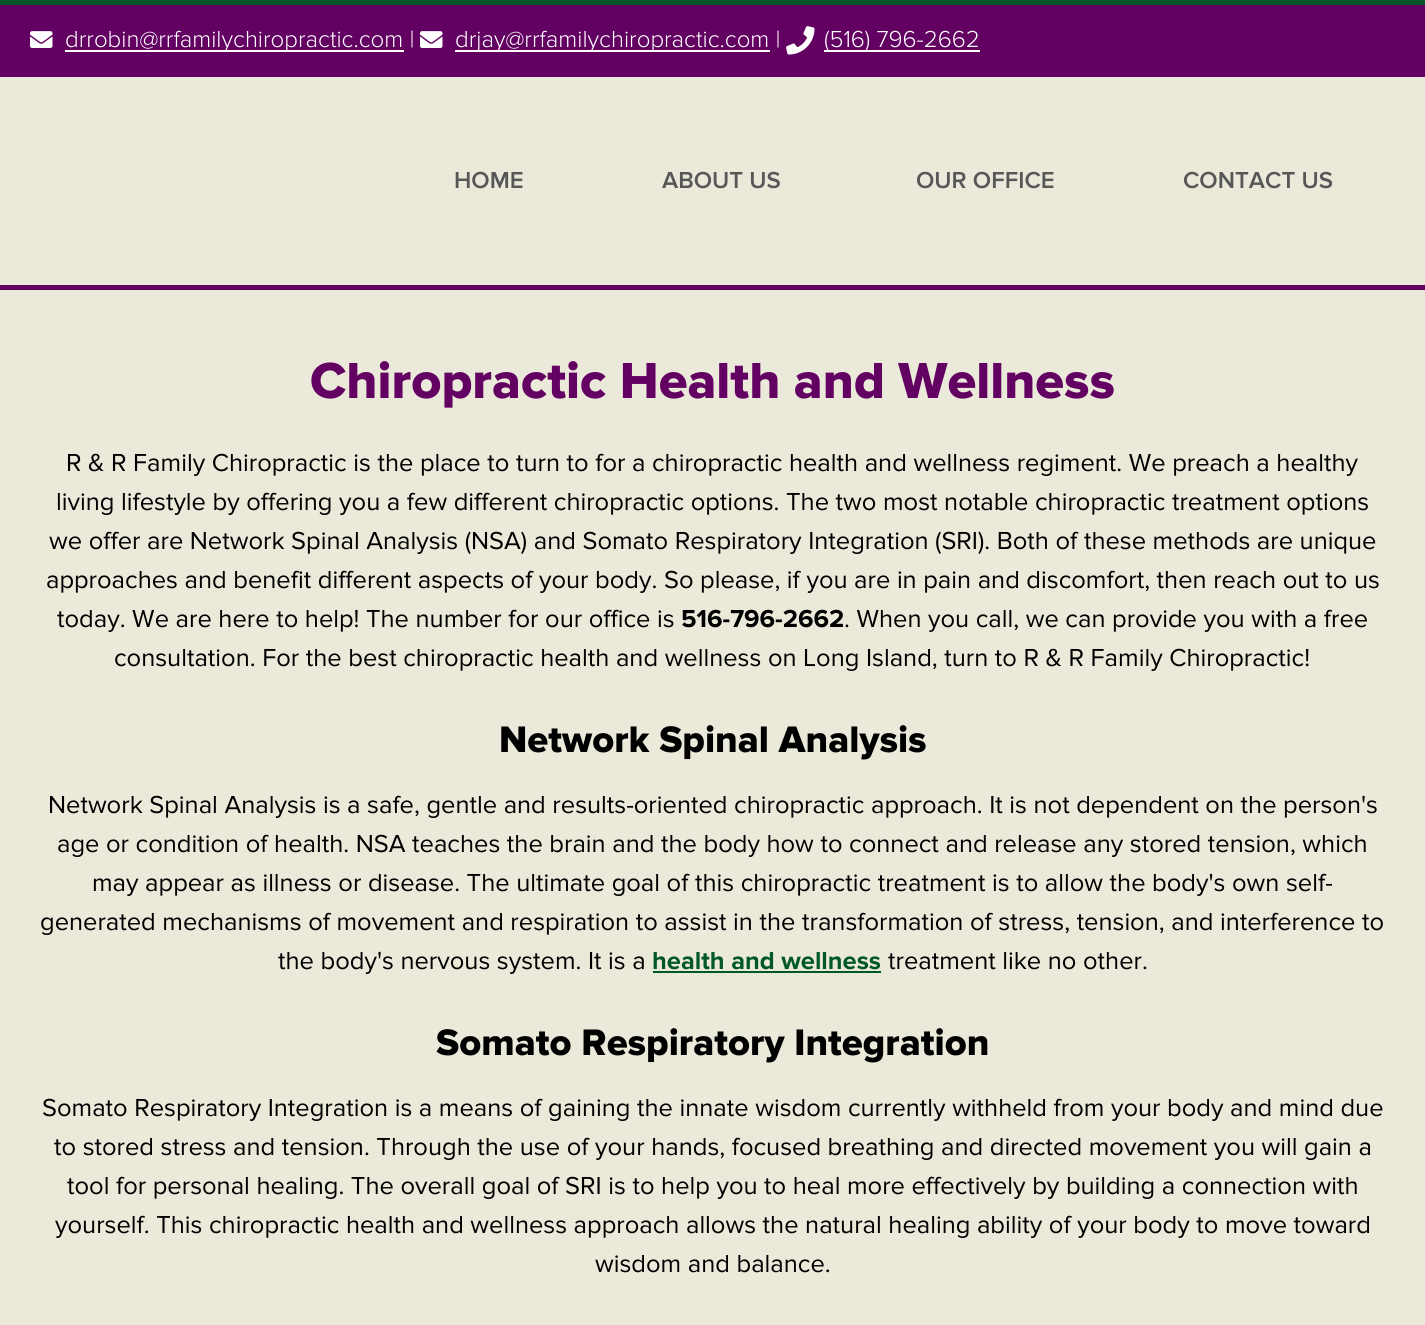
import math
import cairocffi as cairo

surface = cairo.ImageSurface(cairo.FORMAT_RGB24, 1425, 1325)
cr = cairo.Context(surface)
options = cairo.FontOptions()
options.set_hint_metrics(cairo.HINT_METRICS_OFF)
options.set_hint_style(cairo.HINT_STYLE_NONE)
cr.set_font_options(options)
cr.set_miter_limit(4)


def use_color(code):
    cr.set_source_rgb(*(v / 255 for v in bytes.fromhex(code[-6:])))


def picture(path, x, y, w, h):
    cr.save()
    cr.set_source_surface(cairo.ImageSurface.create_from_png(path), x, y)
    cr.rectangle(x, y, w, h)
    cr.fill()
    cr.restore()


use_color("#ebe9d9")
cr.paint()
use_color("#620162")
cr.rectangle(0, 5, 1425, 72)
cr.fill()
use_color("#005826")
cr.rectangle(0, 0, 1425, 5)
cr.fill()
picture("img1.png", 30, 31, 23, 17)
use_color("#ffffff")
cr.rectangle(65, 50, 339, 2)
cr.fill()
cr.select_font_face("Proxima Nova Light")
cr.set_font_size(24)
cr.move_to(65, 47)
cr.show_text("drrobin@rrfamilychiropractic.com |")
picture("img1.png", 420, 31, 23, 17)
cr.rectangle(455, 50, 315, 2)
cr.fill()
cr.move_to(455, 47)
cr.show_text("drjay@rrfamilychiropractic.com |")
picture("img2.png", 786, 26, 29, 29)
cr.rectangle(824, 50, 156, 2)
cr.fill()
cr.move_to(824, 47)
cr.show_text("(516) 796-2662")
use_color("#620162")
cr.rectangle(0, 285, 1425, 5)
cr.fill()
cr.select_font_face("Proxima Nova SemiBold")
use_color("#575757")
cr.move_to(454, 188)
cr.show_text("HOME")
cr.move_to(662, 188)
cr.show_text("ABOUT US")
cr.move_to(916, 188)
cr.show_text("OUR OFFICE")
cr.move_to(1183, 188)
cr.show_text("CONTACT US")
cr.select_font_face("Proxima Nova ExtraBold")
cr.set_font_size(52.5)
use_color("#620162")
cr.move_to(310, 398)
cr.show_text("Chiropractic Health and Wellness")
cr.select_font_face("Proxima Nova")
cr.set_font_size(25.5)
use_color("#000000")
cr.move_to(66, 471)
cr.show_text("R & R Family Chiropractic is the place to turn to for a chiropractic health and wellness regiment. We preach a healthy")
cr.move_to(56, 510)
cr.show_text("living lifestyle by offering you a few different chiropractic options. The two most notable chiropractic treatment options")
cr.move_to(49, 549)
cr.show_text("we offer are Network Spinal Analysis (NSA) and Somato Respiratory Integration (SRI). Both of these methods are unique")
cr.move_to(46, 588)
cr.show_text("approaches and benefit different aspects of your body. So please, if you are in pain and discomfort, then reach out to us")
cr.move_to(57, 627)
cr.show_text("today. We are here to help! The number for our office is")
cr.select_font_face("Proxima Nova", cairo.FONT_SLANT_NORMAL, cairo.FONT_WEIGHT_BOLD)
cr.move_to(681, 627)
cr.show_text("516-796-2662")
cr.select_font_face("Proxima Nova")
cr.move_to(844, 627)
cr.show_text(". When you call, we can provide you with a free")
cr.move_to(114, 666)
cr.show_text("consultation. For the best chiropractic health and wellness on Long Island, turn to R & R Family Chiropractic!")
cr.select_font_face("Proxima Nova ExtraBold")
cr.set_font_size(38.25)
cr.move_to(499, 752)
cr.show_text("Network Spinal Analysis")
cr.select_font_face("Proxima Nova")
cr.set_font_size(25.5)
cr.move_to(48, 813)
cr.show_text("Network Spinal Analysis is a safe, gentle and results-oriented chiropractic approach. It is not dependent on the person's")
cr.move_to(57, 852)
cr.show_text("age or condition of health. NSA teaches the brain and the body how to connect and release any stored tension, which")
cr.move_to(92, 891)
cr.show_text("may appear as illness or disease. The ultimate goal of this chiropractic treatment is to allow the body's own self-")
cr.move_to(40, 930)
cr.show_text("generated mechanisms of movement and respiration to assist in the transformation of stress, tension, and interference to")
cr.move_to(278, 969)
cr.show_text("the body's nervous system. It is a")
cr.select_font_face("Proxima Nova", cairo.FONT_SLANT_NORMAL, cairo.FONT_WEIGHT_BOLD)
use_color("#005826")
cr.move_to(652, 969)
cr.show_text("health and wellness")
cr.rectangle(653, 971, 228, 2)
cr.fill()
cr.select_font_face("Proxima Nova")
use_color("#000000")
cr.move_to(888, 969)
cr.show_text("treatment like no other.")
cr.select_font_face("Proxima Nova ExtraBold")
cr.set_font_size(38.25)
cr.move_to(436, 1055)
cr.show_text("Somato Respiratory Integration")
cr.select_font_face("Proxima Nova")
cr.set_font_size(25.5)
cr.move_to(42, 1116)
cr.show_text("Somato Respiratory Integration is a means of gaining the innate wisdom currently withheld from your body and mind due")
cr.move_to(54, 1155)
cr.show_text("to stored stress and tension. Through the use of your hands, focused breathing and directed movement you will gain a")
cr.move_to(67, 1194)
cr.show_text("tool for personal healing. The overall goal of SRI is to help you to heal more effectively by building a connection with")
cr.move_to(55, 1233)
cr.show_text("yourself. This chiropractic health and wellness approach allows the natural healing ability of your body to move toward")
cr.move_to(595, 1272)
cr.show_text("wisdom and balance.")
surface.write_to_png("result.png")
